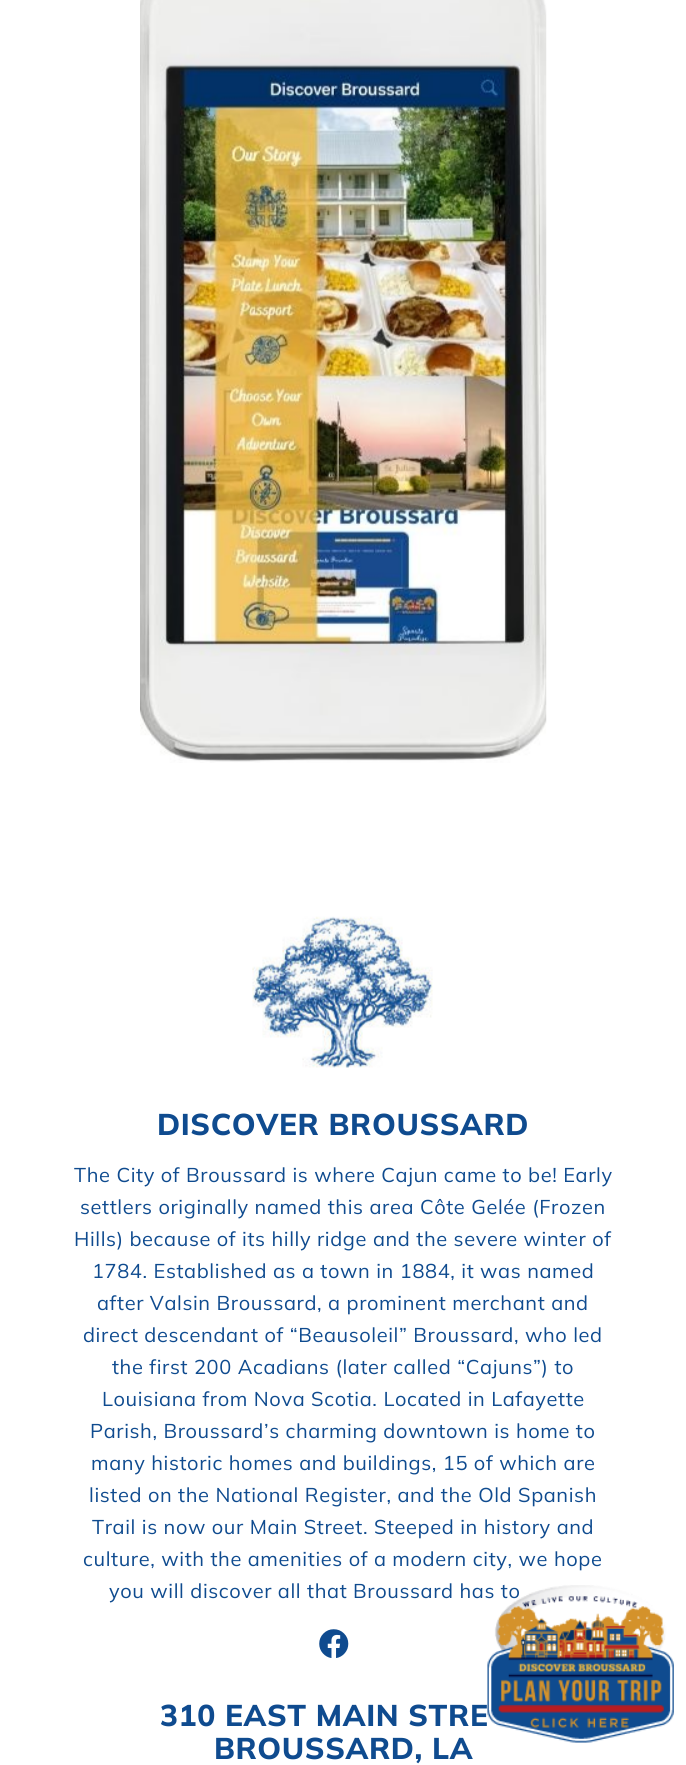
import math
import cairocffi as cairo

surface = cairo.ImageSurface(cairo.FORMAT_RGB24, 686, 1765)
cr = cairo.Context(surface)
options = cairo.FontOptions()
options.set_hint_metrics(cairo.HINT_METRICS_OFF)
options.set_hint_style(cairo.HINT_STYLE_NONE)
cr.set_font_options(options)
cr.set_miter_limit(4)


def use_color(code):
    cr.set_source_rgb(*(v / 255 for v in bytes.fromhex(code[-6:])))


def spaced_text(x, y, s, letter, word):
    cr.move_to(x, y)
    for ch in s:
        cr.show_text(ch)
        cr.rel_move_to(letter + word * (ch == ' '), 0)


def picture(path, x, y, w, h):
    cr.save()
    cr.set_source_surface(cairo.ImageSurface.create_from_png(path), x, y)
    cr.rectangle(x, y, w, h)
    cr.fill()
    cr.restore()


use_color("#ffffff")
cr.paint()
picture("img1.png", 140, 0, 407, 763)
picture("img2.png", 252, 916, 181, 152)
cr.select_font_face("Mulish ExtraBold")
cr.set_font_size(30)
use_color("#0f4b8f")
spaced_text(157, 1135, "DISCOVER BROUSSARD", 0.62, 0)
cr.select_font_face("Mulish")
cr.set_font_size(20)
spaced_text(74, 1182, "The City of Broussard is where Cajun came to be! Early", 0.62, 0)
spaced_text(80, 1214, "settlers originally named this area Côte Gelée (Frozen", 0.62, 0)
spaced_text(74, 1246, "Hills) because of its hilly ridge and the severe winter of", 0.62, 0)
spaced_text(92, 1278, "1784. Established as a town in 1884, it was named", 0.62, 0)
spaced_text(97, 1310, "after Valsin Broussard, a prominent merchant and", 0.62, 0)
spaced_text(83, 1342, "direct descendant of “Beausoleil” Broussard, who led", 0.62, 0)
spaced_text(112, 1374, "the first 200 Acadians (later called “Cajuns”) to", 0.62, 0)
spaced_text(102, 1406, "Louisiana from Nova Scotia. Located in Lafayette", 0.62, 0)
spaced_text(90, 1438, "Parish, Broussard’s charming downtown is home to", 0.62, 0)
spaced_text(91, 1470, "many historic homes and buildings, 15 of which are", 0.62, 0)
spaced_text(89, 1502, "listed on the National Register, and the Old Spanish", 0.62, 0)
spaced_text(92, 1534, "Trail is now our Main Street. Steeped in history and", 0.62, 0)
spaced_text(83, 1566, "culture, with the amenities of a modern city, we hope", 0.62, 0)
spaced_text(109, 1598, "you will discover all that Broussard has to", 0.62, 0)
picture("img3.png", 319, 1629, 30, 29)
cr.select_font_face("Mulish ExtraBold")
cr.set_font_size(30)
spaced_text(160, 1726, "310 EAST MAIN STRE", 0.62, 0)
spaced_text(214, 1759, "BROUSSARD, LA", 0.62, 0)
picture("img4.png", 487, 1584, 187, 159)
surface.write_to_png("result.png")
